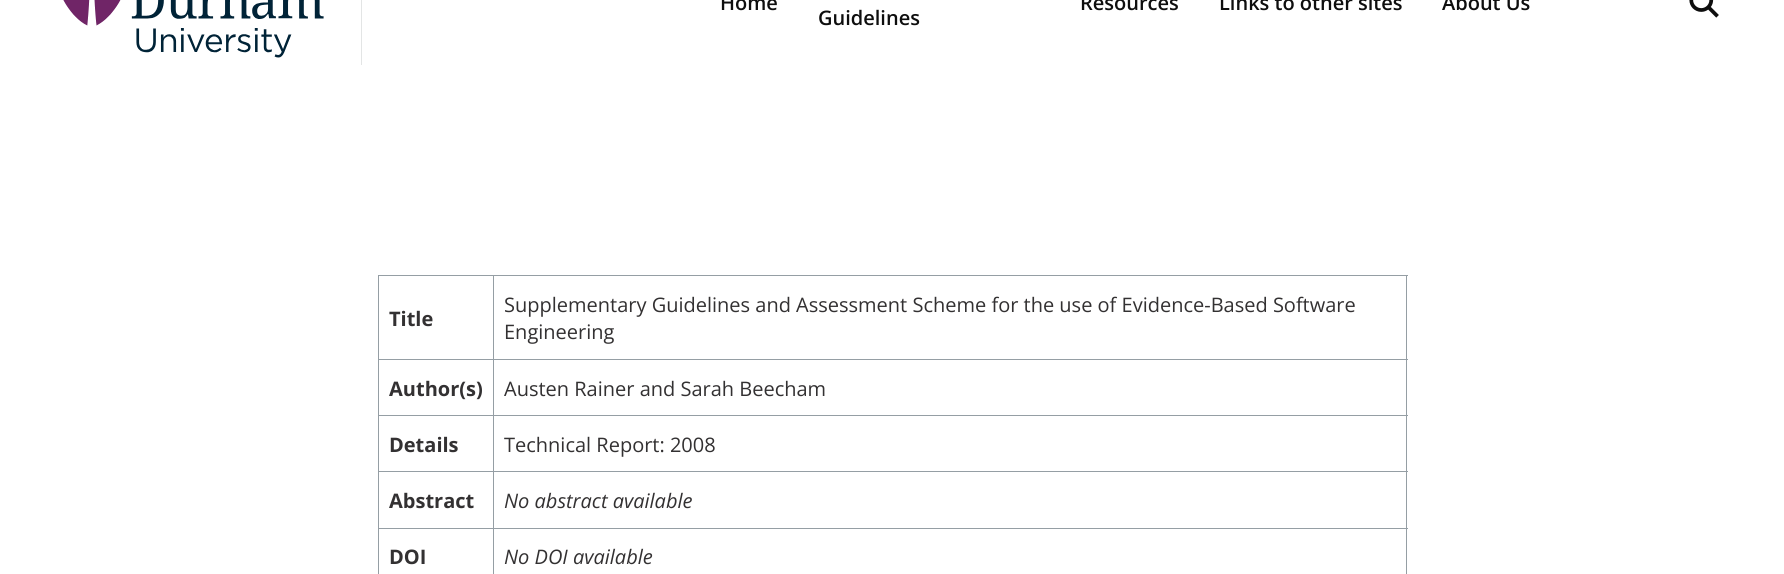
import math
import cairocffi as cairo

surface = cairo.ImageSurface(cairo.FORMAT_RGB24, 1784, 574)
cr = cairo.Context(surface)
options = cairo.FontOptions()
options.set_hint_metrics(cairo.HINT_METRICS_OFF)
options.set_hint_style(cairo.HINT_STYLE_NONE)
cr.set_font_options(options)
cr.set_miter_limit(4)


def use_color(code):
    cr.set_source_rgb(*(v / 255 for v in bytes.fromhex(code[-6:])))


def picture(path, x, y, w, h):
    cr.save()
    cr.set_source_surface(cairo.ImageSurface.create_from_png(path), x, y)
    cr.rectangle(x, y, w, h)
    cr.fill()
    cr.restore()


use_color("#ffffff")
cr.paint()
use_color("#e3e5e5")
cr.rectangle(361, 0, 1, 65)
cr.fill()
picture("img1.png", 63, 0, 261, 58)
cr.select_font_face("Open Sans SemiBold")
cr.set_font_size(20)
use_color("#0e0e0e")
cr.move_to(720, 10)
cr.show_text("Home")
cr.move_to(1080, 10)
cr.show_text("Resources")
cr.move_to(1219, 10)
cr.show_text("Links to other sites")
cr.move_to(1442, 10)
cr.show_text("About Us")
cr.move_to(818, 25)
cr.show_text("Guidelines")
picture("img2.png", 1689, 0, 30, 18)
use_color("#959ea4")
cr.rectangle(493, 275, 915, 1)
cr.fill()
cr.rectangle(493, 359, 915, 1)
cr.fill()
cr.rectangle(493, 415, 915, 1)
cr.fill()
cr.rectangle(493, 471, 915, 1)
cr.fill()
cr.rectangle(493, 528, 915, 1)
cr.fill()
cr.rectangle(493, 528, 1, 46)
cr.fill()
cr.rectangle(378, 528, 116, 1)
cr.fill()
cr.rectangle(493, 471, 1, 58)
cr.fill()
cr.rectangle(378, 471, 116, 1)
cr.fill()
cr.rectangle(493, 415, 1, 58)
cr.fill()
cr.rectangle(378, 415, 116, 1)
cr.fill()
cr.rectangle(493, 359, 1, 57)
cr.fill()
cr.rectangle(378, 359, 116, 1)
cr.fill()
cr.rectangle(493, 275, 1, 85)
cr.fill()
cr.rectangle(378, 275, 116, 1)
cr.fill()
cr.rectangle(378, 528, 1, 46)
cr.fill()
cr.rectangle(378, 471, 1, 58)
cr.fill()
cr.rectangle(378, 415, 1, 58)
cr.fill()
cr.rectangle(378, 359, 1, 57)
cr.fill()
cr.rectangle(378, 275, 1, 85)
cr.fill()
cr.select_font_face("Open Sans", cairo.FONT_SLANT_NORMAL, cairo.FONT_WEIGHT_BOLD)
use_color("#333132")
cr.move_to(389, 326)
cr.show_text("Title")
use_color("#959ea4")
cr.rectangle(1406, 528, 1, 46)
cr.fill()
cr.rectangle(1406, 471, 1, 58)
cr.fill()
cr.rectangle(1406, 415, 1, 58)
cr.fill()
cr.rectangle(1406, 359, 1, 57)
cr.fill()
cr.rectangle(1406, 275, 1, 85)
cr.fill()
cr.select_font_face("Open Sans")
use_color("#333132")
cr.move_to(504, 312)
cr.show_text("Supplementary Guidelines and Assessment Scheme for the use of Evidence-Based Software")
cr.move_to(504, 339)
cr.show_text("Engineering")
cr.select_font_face("Open Sans", cairo.FONT_SLANT_NORMAL, cairo.FONT_WEIGHT_BOLD)
cr.move_to(389, 396)
cr.show_text("Author(s)")
cr.select_font_face("Open Sans")
cr.move_to(504, 396)
cr.show_text("Austen Rainer and Sarah Beecham")
cr.select_font_face("Open Sans", cairo.FONT_SLANT_NORMAL, cairo.FONT_WEIGHT_BOLD)
cr.move_to(389, 452)
cr.show_text("Details")
cr.select_font_face("Open Sans")
cr.move_to(504, 452)
cr.show_text("Technical Report: 2008")
cr.select_font_face("Open Sans", cairo.FONT_SLANT_NORMAL, cairo.FONT_WEIGHT_BOLD)
cr.move_to(389, 508)
cr.show_text("Abstract")
cr.select_font_face("Open Sans", cairo.FONT_SLANT_ITALIC)
cr.move_to(504, 508)
cr.show_text("No abstract available")
cr.select_font_face("Open Sans", cairo.FONT_SLANT_NORMAL, cairo.FONT_WEIGHT_BOLD)
cr.move_to(389, 564)
cr.show_text("DOI")
cr.select_font_face("Open Sans", cairo.FONT_SLANT_ITALIC)
cr.move_to(504, 564)
cr.show_text("No DOI available")
surface.write_to_png("result.png")
